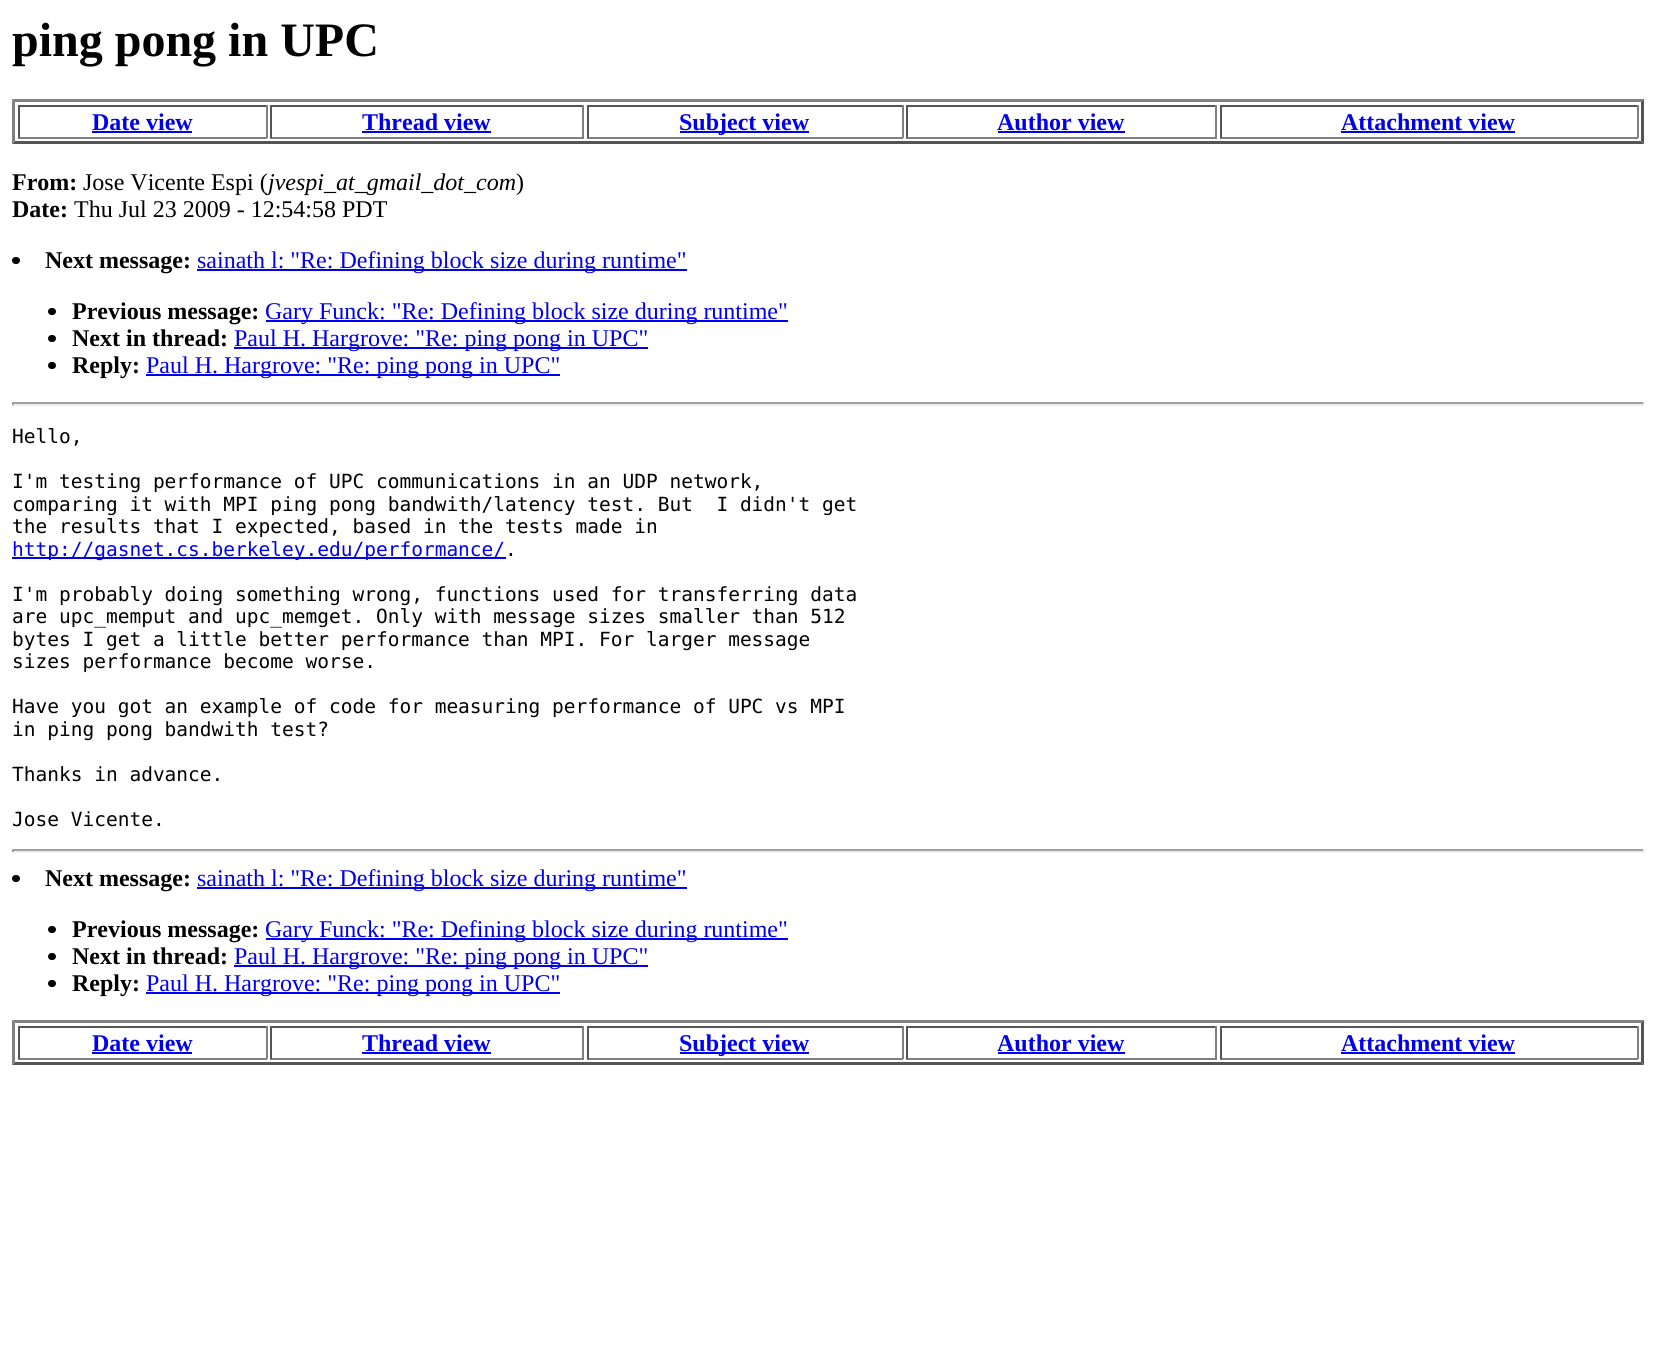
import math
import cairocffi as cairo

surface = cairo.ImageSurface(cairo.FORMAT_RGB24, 1656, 1369)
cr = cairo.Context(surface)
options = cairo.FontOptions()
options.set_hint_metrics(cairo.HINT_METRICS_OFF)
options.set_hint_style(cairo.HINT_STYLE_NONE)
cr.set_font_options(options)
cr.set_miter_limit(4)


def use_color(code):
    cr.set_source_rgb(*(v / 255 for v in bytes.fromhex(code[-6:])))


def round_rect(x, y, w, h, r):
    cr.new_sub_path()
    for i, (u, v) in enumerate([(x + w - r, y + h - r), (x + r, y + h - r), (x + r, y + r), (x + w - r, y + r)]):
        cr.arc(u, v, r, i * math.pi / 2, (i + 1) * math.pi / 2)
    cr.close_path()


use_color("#ffffff")
cr.paint()
cr.select_font_face("Liberation Serif", cairo.FONT_SLANT_NORMAL, cairo.FONT_WEIGHT_BOLD)
cr.set_font_size(48)
use_color("#000000")
cr.move_to(12, 56)
cr.show_text("ping pong in UPC")
use_color("#808080")
cr.new_path()
cr.move_to(12, 99)
cr.line_to(1644, 99)
cr.line_to(1641, 102)
cr.line_to(15, 102)
cr.close_path()
cr.fill()
use_color("#555555")
cr.new_path()
cr.move_to(1644, 99)
cr.line_to(1644, 144)
cr.line_to(1641, 141)
cr.line_to(1641, 102)
cr.close_path()
cr.fill()
cr.new_path()
cr.move_to(1644, 144)
cr.line_to(12, 144)
cr.line_to(15, 141)
cr.line_to(1641, 141)
cr.close_path()
cr.fill()
use_color("#808080")
cr.new_path()
cr.move_to(12, 144)
cr.line_to(12, 99)
cr.line_to(15, 102)
cr.line_to(15, 141)
cr.close_path()
cr.fill()
use_color("#555555")
cr.rectangle(18, 105, 249, 2)
cr.fill()
use_color("#808080")
cr.rectangle(266, 105, 2, 33)
cr.fill()
cr.rectangle(18, 137, 249, 2)
cr.fill()
use_color("#555555")
cr.rectangle(18, 105, 2, 33)
cr.fill()
cr.set_font_size(24)
use_color("#0000ee")
cr.move_to(92, 130)
cr.show_text("Date view")
cr.rectangle(92, 131, 100, 2)
cr.fill()
use_color("#555555")
cr.rectangle(270, 105, 314, 2)
cr.fill()
use_color("#808080")
cr.rectangle(582, 105, 2, 33)
cr.fill()
cr.rectangle(270, 137, 314, 2)
cr.fill()
use_color("#555555")
cr.rectangle(270, 105, 2, 33)
cr.fill()
use_color("#0000ee")
cr.move_to(362, 130)
cr.show_text("Thread view")
cr.rectangle(362, 131, 129, 2)
cr.fill()
use_color("#555555")
cr.rectangle(587, 105, 316, 2)
cr.fill()
use_color("#808080")
cr.rectangle(902, 105, 2, 33)
cr.fill()
cr.rectangle(587, 137, 316, 2)
cr.fill()
use_color("#555555")
cr.rectangle(587, 105, 2, 33)
cr.fill()
use_color("#0000ee")
cr.rectangle(680, 131, 129, 2)
cr.fill()
cr.move_to(679, 130)
cr.show_text("Subject view")
use_color("#555555")
cr.rectangle(906, 105, 311, 2)
cr.fill()
use_color("#808080")
cr.rectangle(1215, 105, 2, 33)
cr.fill()
cr.rectangle(906, 137, 311, 2)
cr.fill()
use_color("#555555")
cr.rectangle(906, 105, 2, 33)
cr.fill()
use_color("#0000ee")
cr.move_to(997, 130)
cr.show_text("Author view")
cr.rectangle(998, 131, 127, 2)
cr.fill()
use_color("#555555")
cr.rectangle(1220, 105, 418, 2)
cr.fill()
use_color("#808080")
cr.rectangle(1637, 105, 2, 33)
cr.fill()
cr.rectangle(1220, 137, 418, 2)
cr.fill()
use_color("#555555")
cr.rectangle(1220, 105, 2, 33)
cr.fill()
use_color("#0000ee")
cr.move_to(1341, 130)
cr.show_text("Attachment view")
cr.rectangle(1341, 131, 174, 2)
cr.fill()
use_color("#000000")
cr.move_to(12, 190)
cr.show_text("From:")
cr.select_font_face("Liberation Serif")
cr.move_to(83, 190)
cr.show_text("Jose Vicente Espi (")
cr.select_font_face("Liberation Serif", cairo.FONT_SLANT_ITALIC)
cr.move_to(268, 190)
cr.show_text("jvespi_at_gmail_dot_com")
cr.select_font_face("Liberation Serif")
cr.move_to(516, 190)
cr.show_text(")")
cr.select_font_face("Liberation Serif", cairo.FONT_SLANT_NORMAL, cairo.FONT_WEIGHT_BOLD)
cr.move_to(12, 217)
cr.show_text("Date:")
cr.select_font_face("Liberation Serif")
cr.move_to(74, 217)
cr.show_text("Thu Jul 23 2009 - 12:54:58 PDT")
round_rect(12, 257, 8, 7, 3.5)
cr.fill()
cr.select_font_face("Liberation Serif", cairo.FONT_SLANT_NORMAL, cairo.FONT_WEIGHT_BOLD)
cr.move_to(45, 268)
cr.show_text("Next message:")
use_color("#0000ee")
cr.rectangle(197, 269, 490, 2)
cr.fill()
cr.select_font_face("Liberation Serif")
cr.move_to(197, 268)
cr.show_text("sainath l: \"Re: Defining block size during runtime\"")
use_color("#000000")
round_rect(48, 308, 8, 7, 3.5)
cr.fill()
cr.select_font_face("Liberation Serif", cairo.FONT_SLANT_NORMAL, cairo.FONT_WEIGHT_BOLD)
cr.move_to(72, 319)
cr.show_text("Previous message:")
use_color("#0000ee")
cr.rectangle(266, 320, 522, 2)
cr.fill()
cr.select_font_face("Liberation Serif")
cr.move_to(265, 319)
cr.show_text("Gary Funck: \"Re: Defining block size during runtime\"")
use_color("#000000")
round_rect(48, 335, 8, 7, 3.5)
cr.fill()
cr.select_font_face("Liberation Serif", cairo.FONT_SLANT_NORMAL, cairo.FONT_WEIGHT_BOLD)
cr.move_to(72, 346)
cr.show_text("Next in thread:")
use_color("#0000ee")
cr.rectangle(234, 347, 414, 2)
cr.fill()
cr.select_font_face("Liberation Serif")
cr.move_to(234, 346)
cr.show_text("Paul H. Hargrove: \"Re: ping pong in UPC\"")
use_color("#000000")
round_rect(48, 362, 8, 7, 3.5)
cr.fill()
cr.select_font_face("Liberation Serif", cairo.FONT_SLANT_NORMAL, cairo.FONT_WEIGHT_BOLD)
cr.move_to(72, 373)
cr.show_text("Reply:")
use_color("#0000ee")
cr.rectangle(146, 374, 414, 2)
cr.fill()
cr.select_font_face("Liberation Serif")
cr.move_to(146, 373)
cr.show_text("Paul H. Hargrove: \"Re: ping pong in UPC\"")
use_color("#9f9f9f")
cr.rectangle(12, 402, 1632, 2)
cr.fill()
use_color("#eeeeee")
cr.rectangle(1643, 402, 2, 3)
cr.fill()
cr.rectangle(12, 404, 1632, 2)
cr.fill()
use_color("#9f9f9f")
cr.rectangle(12, 402, 2, 3)
cr.fill()
cr.select_font_face("DejaVu Sans Mono")
cr.set_font_size(19.5)
use_color("#000000")
cr.move_to(12, 443)
cr.show_text("Hello,")
cr.move_to(12, 488)
cr.show_text("I'm testing performance of UPC communications in an UDP network,")
cr.move_to(12, 511)
cr.show_text("comparing it with MPI ping pong bandwith/latency test. But  I didn't get")
cr.move_to(12, 533)
cr.show_text("the results that I expected, based in the tests made in")
use_color("#0000ee")
cr.rectangle(12, 557, 494, 2)
cr.fill()
cr.move_to(12, 556)
cr.show_text("http://gasnet.cs.berkeley.edu/performance/")
use_color("#000000")
cr.move_to(505, 556)
cr.show_text(".")
cr.move_to(12, 601)
cr.show_text("I'm probably doing something wrong, functions used for transferring data")
cr.move_to(12, 623)
cr.show_text("are upc_memput and upc_memget. Only with message sizes smaller than 512")
cr.move_to(12, 646)
cr.show_text("bytes I get a little better performance than MPI. For larger message")
cr.move_to(12, 668)
cr.show_text("sizes performance become worse.")
cr.move_to(12, 713)
cr.show_text("Have you got an example of code for measuring performance of UPC vs MPI")
cr.move_to(12, 736)
cr.show_text("in ping pong bandwith test?")
cr.move_to(12, 781)
cr.show_text("Thanks in advance.")
cr.move_to(12, 826)
cr.show_text("Jose Vicente.")
use_color("#9f9f9f")
cr.rectangle(12, 849, 1632, 2)
cr.fill()
use_color("#eeeeee")
cr.rectangle(1643, 849, 2, 3)
cr.fill()
cr.rectangle(12, 851, 1632, 2)
cr.fill()
use_color("#9f9f9f")
cr.rectangle(12, 849, 2, 3)
cr.fill()
use_color("#000000")
round_rect(12, 875, 8, 7, 3.5)
cr.fill()
cr.select_font_face("Liberation Serif", cairo.FONT_SLANT_NORMAL, cairo.FONT_WEIGHT_BOLD)
cr.set_font_size(24)
cr.move_to(45, 886)
cr.show_text("Next message:")
use_color("#0000ee")
cr.rectangle(197, 887, 490, 2)
cr.fill()
cr.select_font_face("Liberation Serif")
cr.move_to(197, 886)
cr.show_text("sainath l: \"Re: Defining block size during runtime\"")
use_color("#000000")
round_rect(48, 926, 8, 7, 3.5)
cr.fill()
cr.select_font_face("Liberation Serif", cairo.FONT_SLANT_NORMAL, cairo.FONT_WEIGHT_BOLD)
cr.move_to(72, 937)
cr.show_text("Previous message:")
use_color("#0000ee")
cr.rectangle(266, 938, 522, 2)
cr.fill()
cr.select_font_face("Liberation Serif")
cr.move_to(265, 937)
cr.show_text("Gary Funck: \"Re: Defining block size during runtime\"")
use_color("#000000")
round_rect(48, 953, 8, 7, 3.5)
cr.fill()
cr.select_font_face("Liberation Serif", cairo.FONT_SLANT_NORMAL, cairo.FONT_WEIGHT_BOLD)
cr.move_to(72, 964)
cr.show_text("Next in thread:")
use_color("#0000ee")
cr.rectangle(234, 965, 414, 2)
cr.fill()
cr.select_font_face("Liberation Serif")
cr.move_to(234, 964)
cr.show_text("Paul H. Hargrove: \"Re: ping pong in UPC\"")
use_color("#000000")
round_rect(48, 980, 8, 7, 3.5)
cr.fill()
cr.select_font_face("Liberation Serif", cairo.FONT_SLANT_NORMAL, cairo.FONT_WEIGHT_BOLD)
cr.move_to(72, 991)
cr.show_text("Reply:")
use_color("#0000ee")
cr.rectangle(146, 992, 414, 2)
cr.fill()
cr.select_font_face("Liberation Serif")
cr.move_to(146, 991)
cr.show_text("Paul H. Hargrove: \"Re: ping pong in UPC\"")
use_color("#808080")
cr.new_path()
cr.move_to(12, 1020)
cr.line_to(1644, 1020)
cr.line_to(1641, 1023)
cr.line_to(15, 1023)
cr.close_path()
cr.fill()
use_color("#555555")
cr.new_path()
cr.move_to(1644, 1020)
cr.line_to(1644, 1065)
cr.line_to(1641, 1062)
cr.line_to(1641, 1023)
cr.close_path()
cr.fill()
cr.new_path()
cr.move_to(1644, 1065)
cr.line_to(12, 1065)
cr.line_to(15, 1062)
cr.line_to(1641, 1062)
cr.close_path()
cr.fill()
use_color("#808080")
cr.new_path()
cr.move_to(12, 1065)
cr.line_to(12, 1020)
cr.line_to(15, 1023)
cr.line_to(15, 1062)
cr.close_path()
cr.fill()
use_color("#555555")
cr.rectangle(18, 1026, 249, 2)
cr.fill()
use_color("#808080")
cr.rectangle(266, 1026, 2, 33)
cr.fill()
cr.rectangle(18, 1058, 249, 2)
cr.fill()
use_color("#555555")
cr.rectangle(18, 1026, 2, 33)
cr.fill()
cr.select_font_face("Liberation Serif", cairo.FONT_SLANT_NORMAL, cairo.FONT_WEIGHT_BOLD)
use_color("#0000ee")
cr.move_to(92, 1051)
cr.show_text("Date view")
cr.rectangle(92, 1052, 100, 2)
cr.fill()
use_color("#555555")
cr.rectangle(270, 1026, 314, 2)
cr.fill()
use_color("#808080")
cr.rectangle(582, 1026, 2, 33)
cr.fill()
cr.rectangle(270, 1058, 314, 2)
cr.fill()
use_color("#555555")
cr.rectangle(270, 1026, 2, 33)
cr.fill()
use_color("#0000ee")
cr.move_to(362, 1051)
cr.show_text("Thread view")
cr.rectangle(362, 1052, 129, 2)
cr.fill()
use_color("#555555")
cr.rectangle(587, 1026, 316, 2)
cr.fill()
use_color("#808080")
cr.rectangle(902, 1026, 2, 33)
cr.fill()
cr.rectangle(587, 1058, 316, 2)
cr.fill()
use_color("#555555")
cr.rectangle(587, 1026, 2, 33)
cr.fill()
use_color("#0000ee")
cr.rectangle(680, 1052, 129, 2)
cr.fill()
cr.move_to(679, 1051)
cr.show_text("Subject view")
use_color("#555555")
cr.rectangle(906, 1026, 311, 2)
cr.fill()
use_color("#808080")
cr.rectangle(1215, 1026, 2, 33)
cr.fill()
cr.rectangle(906, 1058, 311, 2)
cr.fill()
use_color("#555555")
cr.rectangle(906, 1026, 2, 33)
cr.fill()
use_color("#0000ee")
cr.move_to(997, 1051)
cr.show_text("Author view")
cr.rectangle(998, 1052, 127, 2)
cr.fill()
use_color("#555555")
cr.rectangle(1220, 1026, 418, 2)
cr.fill()
use_color("#808080")
cr.rectangle(1637, 1026, 2, 33)
cr.fill()
cr.rectangle(1220, 1058, 418, 2)
cr.fill()
use_color("#555555")
cr.rectangle(1220, 1026, 2, 33)
cr.fill()
use_color("#0000ee")
cr.move_to(1341, 1051)
cr.show_text("Attachment view")
cr.rectangle(1341, 1052, 174, 2)
cr.fill()
surface.write_to_png("result.png")
